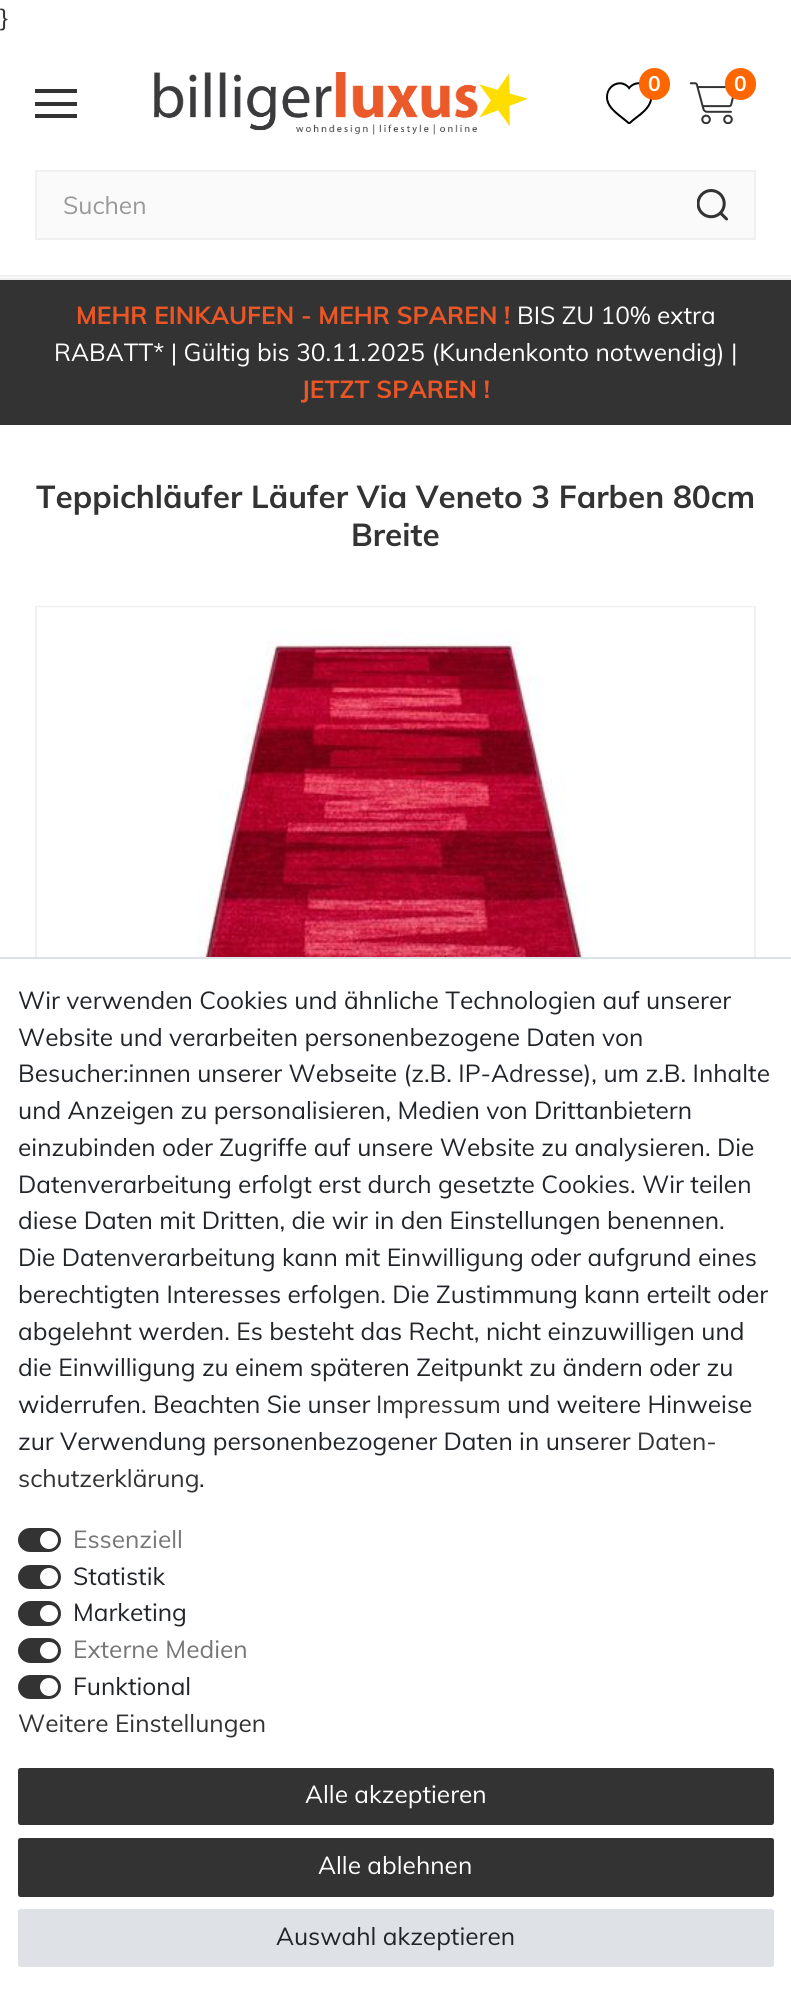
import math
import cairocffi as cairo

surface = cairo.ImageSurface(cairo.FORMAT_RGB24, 791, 2003)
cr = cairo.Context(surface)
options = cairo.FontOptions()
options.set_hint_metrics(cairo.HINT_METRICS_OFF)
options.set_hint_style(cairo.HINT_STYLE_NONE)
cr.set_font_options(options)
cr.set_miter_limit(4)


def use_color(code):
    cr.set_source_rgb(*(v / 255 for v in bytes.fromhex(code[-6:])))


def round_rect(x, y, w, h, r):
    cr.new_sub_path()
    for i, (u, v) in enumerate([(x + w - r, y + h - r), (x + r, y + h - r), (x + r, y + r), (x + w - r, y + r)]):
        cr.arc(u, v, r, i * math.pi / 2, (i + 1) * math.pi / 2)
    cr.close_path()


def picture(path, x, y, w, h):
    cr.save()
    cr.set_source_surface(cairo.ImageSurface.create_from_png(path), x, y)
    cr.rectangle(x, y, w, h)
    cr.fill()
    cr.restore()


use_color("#ffffff")
cr.paint()
cr.select_font_face("Muli")
cr.set_font_size(24.5)
use_color("#333333")
cr.move_to(0, 26)
cr.show_text("}")
use_color("#f0f0f0")
cr.rectangle(0, 275, 791, 2)
cr.fill()
picture("img1.png", 154, 72, 374, 63)
picture("img2.png", 606, 82, 47, 42)
use_color("#ff6600")
round_rect(639, 68, 31, 32, 15.5)
cr.fill()
cr.select_font_face("Muli", cairo.FONT_SLANT_NORMAL, cairo.FONT_WEIGHT_BOLD)
cr.set_font_size(21)
use_color("#ffffff")
cr.move_to(648, 91)
cr.show_text("0")
picture("img3.png", 689, 82, 45, 42)
use_color("#ff6600")
round_rect(725, 68, 31, 32, 15.5)
cr.fill()
use_color("#ffffff")
cr.move_to(734, 91)
cr.show_text("0")
use_color("#333333")
cr.rectangle(35, 102, 42, 4)
cr.fill()
cr.rectangle(35, 89, 42, 4)
cr.fill()
cr.rectangle(35, 114, 42, 4)
cr.fill()
use_color("#fafafa")
cr.rectangle(37, 172, 717, 66)
cr.fill()
use_color("#f0f0f0")
cr.rectangle(35, 170, 721, 2)
cr.fill()
cr.rectangle(35, 238, 635, 2)
cr.fill()
cr.rectangle(35, 170, 2, 70)
cr.fill()
cr.select_font_face("Muli")
cr.set_font_size(24.5)
use_color("#999999")
cr.move_to(63, 214)
cr.show_text("Suchen")
use_color("#f0f0f0")
cr.rectangle(754, 170, 2, 70)
cr.fill()
cr.rectangle(670, 238, 86, 2)
cr.fill()
picture("img4.png", 697, 189, 31, 32)
cr.rectangle(0, 278, 791, 2)
cr.fill()
use_color("#333333")
cr.rectangle(0, 280, 791, 145)
cr.fill()
cr.select_font_face("Muli", cairo.FONT_SLANT_NORMAL, cairo.FONT_WEIGHT_BOLD)
use_color("#ea5626")
cr.move_to(76, 324)
cr.show_text("MEHR EINKAUFEN - MEHR SPAREN !")
cr.select_font_face("Muli")
use_color("#ffffff")
cr.move_to(517, 324)
cr.show_text("BIS ZU 10% extra")
cr.move_to(54, 361)
cr.show_text("RABATT* | Gültig bis 30.11.2025 (Kundenkonto notwendig) |")
cr.select_font_face("Muli", cairo.FONT_SLANT_NORMAL, cairo.FONT_WEIGHT_BOLD)
use_color("#ea5626")
cr.move_to(301, 398)
cr.show_text("JETZT SPAREN !")
cr.set_font_size(31.5)
use_color("#333333")
cr.move_to(36, 508)
cr.show_text("Teppichläufer Läufer Via Veneto 3 Farben 80cm")
cr.move_to(351, 546)
cr.show_text("Breite")
cr.rectangle(36, 607, 719, 719)
use_color("#f0f0f0")
cr.stroke()
picture("img5.png", 37, 607, 717, 350)
use_color("#ffffff")
cr.rectangle(35, 959, 721, 368)
cr.fill()
use_color("#dee2e6")
cr.rectangle(0, 957, 791, 2)
cr.fill()
cr.select_font_face("Muli")
cr.set_font_size(24.5)
use_color("#212529")
cr.move_to(18, 1009)
cr.show_text("Wir verwenden Cookies und ähnliche Technologien auf unserer")
cr.move_to(18, 1046)
cr.show_text("Website und verarbeiten personenbezogene Daten von")
cr.move_to(18, 1082)
cr.show_text("Besucher:innen unserer Webseite (z.B. IP-Adresse), um z.B. Inhalte")
cr.move_to(18, 1119)
cr.show_text("und Anzeigen zu personalisieren, Medien von Drittanbietern")
cr.move_to(18, 1156)
cr.show_text("einzubinden oder Zugriffe auf unsere Website zu analysieren. Die")
cr.move_to(18, 1193)
cr.show_text("Datenverarbeitung erfolgt erst durch gesetzte Cookies. Wir teilen")
cr.move_to(18, 1229)
cr.show_text("diese Daten mit Dritten, die wir in den Einstellungen benennen.")
cr.move_to(18, 1266)
cr.show_text("Die Datenverarbeitung kann mit Einwilligung oder aufgrund eines")
cr.move_to(18, 1303)
cr.show_text("berechtigten Interesses erfolgen. Die Zustimmung kann erteilt oder")
cr.move_to(18, 1340)
cr.show_text("abgelehnt werden. Es besteht das Recht, nicht einzuwilligen und")
cr.move_to(18, 1376)
cr.show_text("die Einwilligung zu einem späteren Zeitpunkt zu ändern oder zu")
cr.move_to(18, 1413)
cr.show_text("widerrufen. Beachten Sie unser")
use_color("#333333")
cr.move_to(376, 1413)
cr.show_text("Impressum")
use_color("#212529")
cr.move_to(507, 1413)
cr.show_text("und weitere Hinweise")
cr.move_to(18, 1450)
cr.show_text("zur Verwendung personenbezogener Daten in unserer")
use_color("#333333")
cr.move_to(637, 1450)
cr.show_text("Daten-")
cr.move_to(18, 1487)
cr.show_text("schutzerklärung")
use_color("#212529")
cr.move_to(199, 1487)
cr.show_text(".")
use_color("#333333")
round_rect(19, 1529, 41, 22, 11)
cr.fill_preserve()
cr.stroke()
use_color("#767676")
cr.move_to(73, 1548)
cr.show_text("Essenziell")
use_color("#ffffff")
cr.new_path()
cr.arc(49, 1540, 9, 0, 2 * math.pi)
cr.fill()
use_color("#333333")
round_rect(19, 1566, 41, 22, 11)
cr.fill_preserve()
cr.stroke()
use_color("#212529")
cr.move_to(73, 1585)
cr.show_text("Statistik")
use_color("#ffffff")
cr.new_path()
cr.arc(49, 1577, 9, 0, 2 * math.pi)
cr.fill()
use_color("#333333")
round_rect(19, 1602, 41, 23, 11.5)
cr.fill_preserve()
cr.stroke()
use_color("#212529")
cr.move_to(73, 1621)
cr.show_text("Marketing")
use_color("#ffffff")
round_rect(40, 1605, 18, 17, 8.5)
cr.fill()
use_color("#333333")
round_rect(19, 1639, 41, 23, 11.5)
cr.fill_preserve()
cr.stroke()
use_color("#767676")
cr.move_to(73, 1658)
cr.show_text("Externe Medien")
use_color("#ffffff")
round_rect(40, 1642, 18, 17, 8.5)
cr.fill()
use_color("#333333")
round_rect(19, 1676, 41, 22, 11)
cr.fill_preserve()
cr.stroke()
use_color("#212529")
cr.move_to(73, 1695)
cr.show_text("Funktional")
use_color("#ffffff")
cr.new_path()
cr.arc(49, 1687, 9, 0, 2 * math.pi)
cr.fill()
use_color("#333333")
cr.move_to(18, 1732)
cr.show_text("Weitere Einstellungen")
round_rect(19, 1769, 754, 55, 1.5)
cr.fill_preserve()
cr.stroke()
use_color("#ffffff")
cr.move_to(305, 1803)
cr.show_text("Alle akzeptieren")
use_color("#333333")
round_rect(19, 1839, 754, 57, 1.5)
cr.fill_preserve()
cr.stroke()
use_color("#ffffff")
cr.move_to(318, 1874)
cr.show_text("Alle ablehnen")
use_color("#dee2e6")
round_rect(19, 1910, 754, 56, 1.5)
cr.fill_preserve()
cr.stroke()
use_color("#212529")
cr.move_to(276, 1945)
cr.show_text("Auswahl akzeptieren")
surface.write_to_png("result.png")
